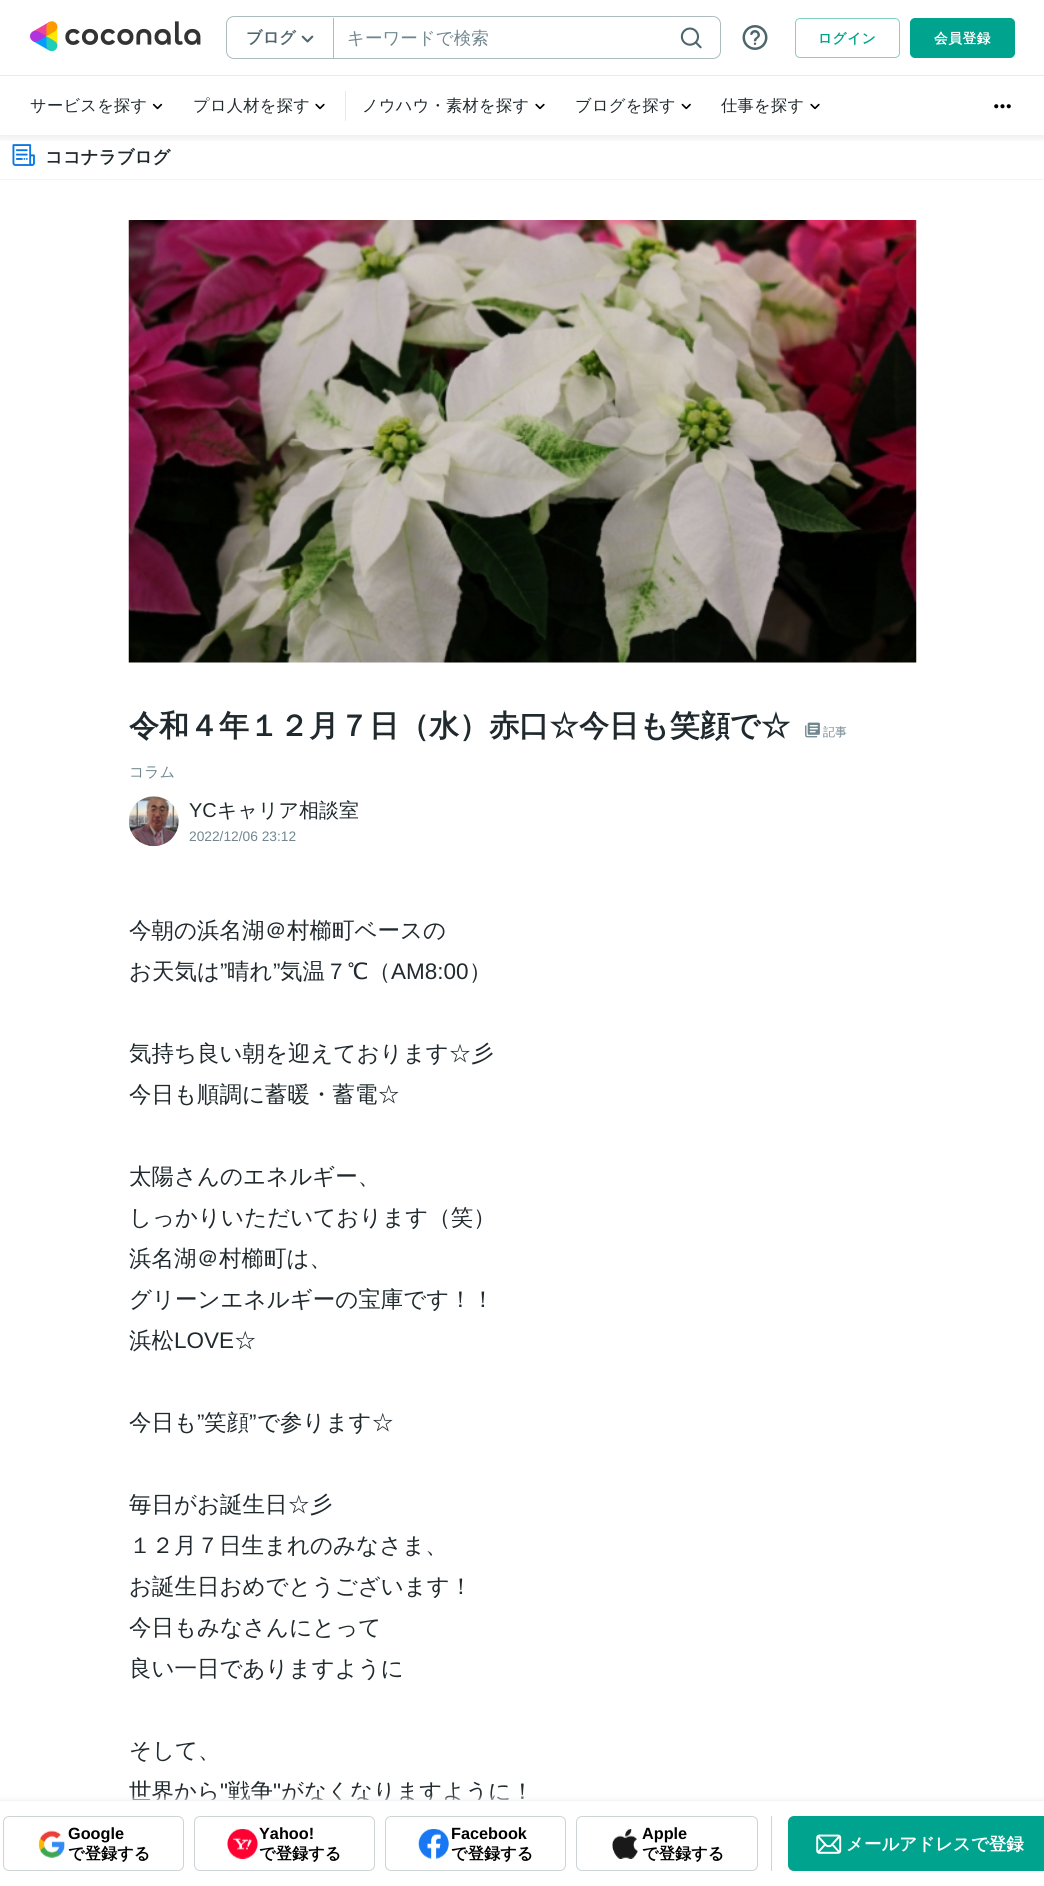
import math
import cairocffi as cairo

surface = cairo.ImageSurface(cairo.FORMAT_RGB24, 1044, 1886)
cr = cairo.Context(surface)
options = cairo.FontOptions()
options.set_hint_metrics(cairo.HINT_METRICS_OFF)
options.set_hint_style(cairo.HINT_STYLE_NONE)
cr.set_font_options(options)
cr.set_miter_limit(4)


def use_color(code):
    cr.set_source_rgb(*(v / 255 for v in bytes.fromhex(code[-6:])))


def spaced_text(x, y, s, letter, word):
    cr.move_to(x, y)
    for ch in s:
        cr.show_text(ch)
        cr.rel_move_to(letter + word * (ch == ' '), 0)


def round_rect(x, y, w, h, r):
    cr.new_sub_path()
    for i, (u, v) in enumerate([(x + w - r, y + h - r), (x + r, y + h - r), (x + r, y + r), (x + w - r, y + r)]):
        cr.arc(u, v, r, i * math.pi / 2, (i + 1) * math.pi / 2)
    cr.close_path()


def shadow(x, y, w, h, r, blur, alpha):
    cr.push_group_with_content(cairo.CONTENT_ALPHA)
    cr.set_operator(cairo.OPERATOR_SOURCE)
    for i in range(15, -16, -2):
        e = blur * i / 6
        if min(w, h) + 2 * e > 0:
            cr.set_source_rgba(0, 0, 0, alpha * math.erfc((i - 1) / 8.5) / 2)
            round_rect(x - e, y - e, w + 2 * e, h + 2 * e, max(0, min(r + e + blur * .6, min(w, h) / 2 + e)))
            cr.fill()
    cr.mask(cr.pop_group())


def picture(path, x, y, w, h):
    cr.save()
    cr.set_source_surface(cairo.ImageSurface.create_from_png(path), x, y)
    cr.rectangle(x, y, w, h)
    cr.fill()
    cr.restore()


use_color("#ffffff")
cr.paint()
picture("img9.png", 12, 144, 23, 22)
cr.save()
cr.rectangle(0, 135, 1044, 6)
cr.clip()
use_color("#000000")
shadow(0, 3, 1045, 135, 0, 4, 0.08)
cr.restore()
picture("img1.png", 30, 21, 171, 30)
round_rect(226.5, 16.5, 494, 42, 7.5)
use_color("#acbbbc")
cr.set_line_width(1)
cr.stroke()
cr.select_font_face("WenQuanYi Zen Hei", cairo.FONT_SLANT_NORMAL, cairo.FONT_WEIGHT_BOLD)
cr.set_font_size(16.25)
use_color("#4d656d")
cr.move_to(246, 43)
cr.show_text("ブログ")
picture("img2.png", 301, 35, 13, 8)
use_color("#acbbbc")
cr.rectangle(333, 18, 1, 40)
cr.fill()
cr.select_font_face("WenQuanYi Zen Hei Medium")
cr.set_font_size(17.5)
use_color("#718790")
cr.move_to(347, 44)
cr.show_text("キーワードで検索")
picture("img3.png", 680, 27, 22, 22)
picture("img4.png", 742, 25, 26, 25)
round_rect(795.5, 18.5, 104, 39, 4.5)
use_color("#80d1c6")
cr.stroke()
cr.select_font_face("WenQuanYi Zen Hei", cairo.FONT_SLANT_NORMAL, cairo.FONT_WEIGHT_BOLD)
cr.set_font_size(13.75)
use_color("#00a38d")
spaced_text(818, 43, "ログイン", 0.5, 0)
round_rect(910.5, 18.5, 104, 39, 4.5)
cr.fill_preserve()
cr.stroke()
use_color("#ffffff")
spaced_text(934, 43, "会員登録", 0.5, 0)
use_color("#e7eaeb")
cr.rectangle(0, 75, 1044, 1)
cr.fill()
cr.select_font_face("WenQuanYi Zen Hei Medium")
cr.set_font_size(16.25)
use_color("#202a2e")
spaced_text(30, 111, "サービスを探す", 0.25, 0)
picture("img5.png", 152, 103, 11, 7)
spaced_text(193, 111, "プロ人材を探す", 0.25, 0)
picture("img6.png", 315, 103, 10, 7)
use_color("#e7eaeb")
cr.rectangle(345, 91, 1, 30)
cr.fill()
use_color("#202a2e")
spaced_text(362, 111, "ノウハウ・素材を探す", 0.25, 0)
picture("img6.png", 535, 103, 10, 7)
spaced_text(575, 111, "ブログを探す", 0.25, 0)
picture("img7.png", 681, 103, 10, 7)
spaced_text(721, 111, "仕事を探す", 0.25, 0)
picture("img6.png", 810, 103, 10, 7)
picture("img8.png", 994, 104, 17, 5)
use_color("#f3f4f5")
cr.rectangle(0, 179, 1044, 1)
cr.fill()
cr.select_font_face("WenQuanYi Zen Hei", cairo.FONT_SLANT_NORMAL, cairo.FONT_WEIGHT_BOLD)
cr.set_font_size(17.5)
use_color("#202a2e")
cr.move_to(45, 163)
cr.show_text("ココナラブログ")
picture("img10.png", 128, 220, 789, 443)
cr.set_font_size(30)
cr.move_to(129, 736)
cr.show_text("令和４年１２月７日（水）赤口☆今日も笑顔で☆")
picture("img11.png", 805, 722, 15, 16)
cr.select_font_face("WenQuanYi Zen Hei Medium")
cr.set_font_size(12)
use_color("#718790")
cr.move_to(823, 736)
cr.show_text("記事")
cr.set_font_size(15)
cr.move_to(129, 777)
cr.show_text("コラム")
picture("img12.png", 128, 796, 51, 51)
cr.select_font_face("Liberation Sans")
cr.set_font_size(20)
use_color("#202a2e")
cr.move_to(189, 817)
cr.show_text("YC")
cr.select_font_face("WenQuanYi Zen Hei Medium")
cr.move_to(217, 817)
cr.show_text("キャリア相談室")
cr.select_font_face("Liberation Sans")
cr.set_font_size(13.75)
use_color("#718790")
cr.move_to(189, 841)
cr.show_text("2022/12/06 23:12")
cr.select_font_face("WenQuanYi Zen Hei Medium")
cr.set_font_size(22.5)
use_color("#202a2e")
cr.move_to(129, 938)
cr.show_text("今朝の浜名湖＠村櫛町ベースの")
cr.move_to(129, 979)
cr.show_text("お天気は")
cr.select_font_face("Liberation Sans")
cr.move_to(220, 979)
cr.show_text("”")
cr.select_font_face("WenQuanYi Zen Hei Medium")
cr.move_to(227, 979)
cr.show_text("晴れ")
cr.select_font_face("Liberation Sans")
cr.move_to(273, 979)
cr.show_text("”")
cr.select_font_face("WenQuanYi Zen Hei Medium")
cr.move_to(280, 979)
cr.show_text("気温７℃（")
cr.select_font_face("Liberation Sans")
cr.move_to(391, 979)
cr.show_text("AM8:00")
cr.select_font_face("WenQuanYi Zen Hei Medium")
cr.move_to(469, 979)
cr.show_text("）")
cr.move_to(129, 1061)
cr.show_text("気持ち良い朝を迎えております☆彡")
cr.move_to(129, 1102)
cr.show_text("今日も順調に蓄暖・蓄電☆")
cr.move_to(129, 1184)
cr.show_text("太陽さんのエネルギー、")
cr.move_to(129, 1225)
cr.show_text("しっかりいただいております（笑）")
cr.move_to(129, 1266)
cr.show_text("浜名湖＠村櫛町は、")
cr.move_to(129, 1307)
cr.show_text("グリーンエネルギーの宝庫です！！")
cr.move_to(129, 1348)
cr.show_text("浜松")
cr.select_font_face("Liberation Sans")
cr.move_to(174, 1348)
cr.show_text("LOVE")
cr.select_font_face("WenQuanYi Zen Hei Medium")
cr.move_to(234, 1348)
cr.show_text("☆")
cr.move_to(129, 1430)
cr.show_text("今日も")
cr.select_font_face("Liberation Sans")
cr.move_to(197, 1430)
cr.show_text("”")
cr.select_font_face("WenQuanYi Zen Hei Medium")
cr.move_to(204, 1430)
cr.show_text("笑顔")
cr.select_font_face("Liberation Sans")
cr.move_to(249, 1430)
cr.show_text("”")
cr.select_font_face("WenQuanYi Zen Hei Medium")
cr.move_to(257, 1430)
cr.show_text("で参ります☆")
cr.move_to(129, 1512)
cr.show_text("毎日がお誕生日☆彡")
cr.move_to(129, 1553)
cr.show_text("１２月７日生まれのみなさま、")
cr.move_to(129, 1594)
cr.show_text("お誕生日おめでとうございます！")
cr.move_to(129, 1635)
cr.show_text("今日もみなさんにとって")
cr.move_to(129, 1676)
cr.show_text("良い一日でありますように")
cr.move_to(129, 1758)
cr.show_text("そして、")
cr.move_to(129, 1799)
cr.show_text("世界から")
cr.select_font_face("Liberation Sans")
cr.move_to(220, 1799)
cr.show_text("\"")
cr.select_font_face("WenQuanYi Zen Hei Medium")
cr.move_to(228, 1799)
cr.show_text("戦争")
cr.select_font_face("Liberation Sans")
cr.move_to(273, 1799)
cr.show_text("\"")
cr.select_font_face("WenQuanYi Zen Hei Medium")
cr.move_to(281, 1799)
cr.show_text("がなくなりますように！")
use_color("#f3f4f5")
shadow(0, 1799, 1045, 86, 0, 3, 1)
use_color("#ffffff")
cr.rectangle(0, 1801, 1044, 85)
cr.fill()
use_color("#f3f4f5")
cr.rectangle(0, 1800, 1044, 1)
cr.fill()
round_rect(3.5, 1816.5, 180, 54, 5.5)
use_color("#ced4d6")
cr.stroke()
picture("img13.png", 38, 1830, 27, 28)
cr.select_font_face("Liberation Sans", cairo.FONT_SLANT_NORMAL, cairo.FONT_WEIGHT_BOLD)
cr.set_font_size(16.25)
use_color("#000000")
cr.move_to(68, 1839)
cr.show_text("Google")
cr.select_font_face("WenQuanYi Zen Hei", cairo.FONT_SLANT_NORMAL, cairo.FONT_WEIGHT_BOLD)
cr.move_to(68, 1859)
cr.show_text("で登録する")
round_rect(194.5, 1816.5, 180, 54, 5.5)
use_color("#ced4d6")
cr.stroke()
picture("img14.png", 227, 1829, 31, 30)
cr.select_font_face("Liberation Sans", cairo.FONT_SLANT_NORMAL, cairo.FONT_WEIGHT_BOLD)
use_color("#000000")
cr.move_to(259, 1839)
cr.show_text("Yahoo!")
cr.select_font_face("WenQuanYi Zen Hei", cairo.FONT_SLANT_NORMAL, cairo.FONT_WEIGHT_BOLD)
cr.move_to(259, 1859)
cr.show_text("で登録する")
round_rect(385.5, 1816.5, 180, 54, 5.5)
use_color("#ced4d6")
cr.stroke()
picture("img15.png", 418, 1829, 31, 30)
cr.select_font_face("Liberation Sans", cairo.FONT_SLANT_NORMAL, cairo.FONT_WEIGHT_BOLD)
use_color("#000000")
cr.move_to(451, 1839)
cr.show_text("Facebook")
cr.select_font_face("WenQuanYi Zen Hei", cairo.FONT_SLANT_NORMAL, cairo.FONT_WEIGHT_BOLD)
cr.move_to(451, 1859)
cr.show_text("で登録する")
round_rect(576.5, 1816.5, 181, 54, 5.5)
use_color("#ced4d6")
cr.stroke()
picture("img16.png", 612, 1829, 26, 30)
cr.select_font_face("Liberation Sans", cairo.FONT_SLANT_NORMAL, cairo.FONT_WEIGHT_BOLD)
use_color("#000000")
cr.move_to(642, 1839)
cr.show_text("Apple")
cr.select_font_face("WenQuanYi Zen Hei", cairo.FONT_SLANT_NORMAL, cairo.FONT_WEIGHT_BOLD)
cr.move_to(642, 1859)
cr.show_text("で登録する")
use_color("#ced4d6")
cr.rectangle(771, 1816, 1, 55)
cr.fill()
use_color("#00a38d")
round_rect(788, 1816, 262, 55, 6)
cr.fill()
picture("img17.png", 816, 1834, 26, 20)
cr.set_font_size(17.5)
use_color("#ffffff")
cr.move_to(846, 1850)
cr.show_text("メールアドレスで登録")
surface.write_to_png("result.png")
